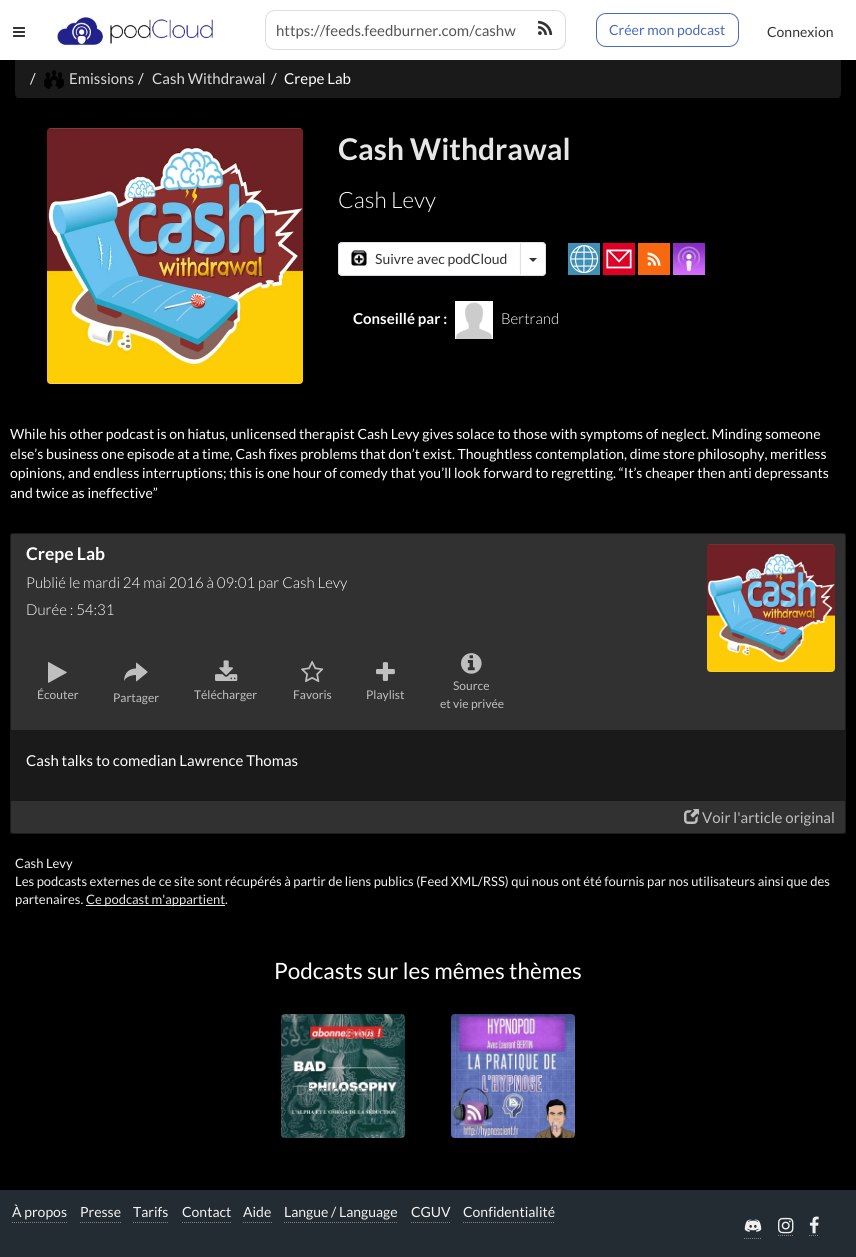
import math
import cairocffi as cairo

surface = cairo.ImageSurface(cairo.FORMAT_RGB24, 856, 1257)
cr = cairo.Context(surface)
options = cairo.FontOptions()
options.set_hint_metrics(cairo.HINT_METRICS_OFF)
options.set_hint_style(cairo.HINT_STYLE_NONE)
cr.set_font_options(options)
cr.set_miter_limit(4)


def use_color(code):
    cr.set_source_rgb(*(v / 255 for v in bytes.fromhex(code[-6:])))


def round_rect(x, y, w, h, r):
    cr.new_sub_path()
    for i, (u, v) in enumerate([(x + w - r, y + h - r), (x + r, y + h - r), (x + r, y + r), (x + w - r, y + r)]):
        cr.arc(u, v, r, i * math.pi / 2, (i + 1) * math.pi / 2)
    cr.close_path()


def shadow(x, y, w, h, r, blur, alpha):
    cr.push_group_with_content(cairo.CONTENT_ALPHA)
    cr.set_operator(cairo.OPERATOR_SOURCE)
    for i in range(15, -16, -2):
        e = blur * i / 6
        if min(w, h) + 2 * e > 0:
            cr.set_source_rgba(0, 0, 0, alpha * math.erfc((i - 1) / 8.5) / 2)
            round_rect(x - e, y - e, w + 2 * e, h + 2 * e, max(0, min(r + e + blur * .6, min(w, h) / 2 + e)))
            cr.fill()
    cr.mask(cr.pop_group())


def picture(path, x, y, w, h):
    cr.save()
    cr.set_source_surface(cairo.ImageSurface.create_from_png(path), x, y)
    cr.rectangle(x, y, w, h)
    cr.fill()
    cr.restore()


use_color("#000000")
cr.paint()
use_color("#ffffff")
cr.rectangle(0, 0, 856, 60)
cr.fill()
picture("img1.png", 13, 27, 12, 10)
picture("img2.png", 57, 16, 156, 30)
round_rect(265.5, 10.5, 300, 39, 9.5)
use_color("#dddddd")
cr.set_line_width(1)
cr.stroke()
cr.select_font_face("Lato")
cr.set_font_size(15)
use_color("#555555")
cr.move_to(276, 36)
cr.show_text("https://feeds.feedburner.com/cashw")
picture("img3.png", 538, 20, 15, 15)
round_rect(596.5, 13.5, 142, 33, 9.5)
use_color("#466bbf")
cr.stroke()
cr.set_font_size(14)
cr.move_to(609, 35)
cr.show_text("Créer mon podcast")
use_color("#333333")
cr.move_to(767, 37)
cr.show_text("Connexion")
use_color("#1a1a1a")
cr.new_path()
cr.move_to(15, 60)
cr.line_to(841, 60)
cr.line_to(841, 94)
cr.curve_to(841, 96, 839, 98, 837, 98)
cr.line_to(19, 98)
cr.curve_to(17, 98, 15, 96, 15, 94)
cr.close_path()
cr.fill()
cr.set_font_size(15)
use_color("#f2f2f2")
cr.move_to(30, 84)
cr.show_text("/")
picture("img4.png", 44, 70, 20, 19)
use_color("#d9d9d9")
cr.move_to(69, 84)
cr.show_text("Emissions")
use_color("#f2f2f2")
cr.move_to(138, 84)
cr.show_text("/")
use_color("#d9d9d9")
cr.move_to(152, 84)
cr.show_text("Cash Withdrawal")
use_color("#f2f2f2")
cr.move_to(271, 84)
cr.show_text("/")
use_color("#ffffff")
cr.move_to(284, 84)
cr.show_text("Crepe Lab")
picture("img5.png", 47, 128, 256, 256)
cr.select_font_face("Lato", cairo.FONT_SLANT_NORMAL, cairo.FONT_WEIGHT_BOLD)
cr.set_font_size(30)
use_color("#e6e6e6")
cr.move_to(338, 160)
cr.show_text("Cash Withdrawal")
cr.select_font_face("Lato Light")
cr.set_font_size(22.5)
use_color("#ffffff")
cr.move_to(338, 208)
cr.show_text("Cash Levy")
cr.new_path()
cr.move_to(342, 242)
cr.line_to(521, 242)
cr.line_to(521, 276)
cr.line_to(342, 276)
cr.curve_to(340, 276, 338, 274, 338, 272)
cr.line_to(338, 246)
cr.curve_to(338, 244, 340, 242, 342, 242)
cr.close_path()
cr.fill()
use_color("#dbe2e7")
cr.new_path()
cr.move_to(342, 242)
cr.line_to(339, 243)
cr.line_to(340, 244)
cr.line_to(342, 243)
cr.line_to(520, 243)
cr.line_to(521, 242)
cr.close_path()
cr.fill()
use_color("#d5dde3")
cr.new_path()
cr.move_to(521, 276)
cr.line_to(520, 275)
cr.line_to(342, 275)
cr.line_to(340, 274)
cr.line_to(339, 275)
cr.line_to(342, 276)
cr.close_path()
cr.fill()
use_color("#dbe2e7")
cr.new_path()
cr.move_to(338, 246)
cr.line_to(338, 272)
cr.curve_to(338, 273, 338.5, 274, 339, 275)
cr.line_to(340, 274)
cr.curve_to(339, 274, 339, 273, 339, 272)
cr.line_to(339, 246)
cr.curve_to(339, 245, 339, 244, 340, 244)
cr.line_to(339, 243)
cr.curve_to(338.5, 244, 338, 245, 338, 246)
cr.close_path()
cr.fill()
picture("img6.png", 351, 250, 16, 16)
cr.select_font_face("Lato")
cr.set_font_size(14)
use_color("#333333")
cr.move_to(375, 264)
cr.show_text("Suivre avec podCloud")
use_color("#5a5a5a")
shadow(520, 243, 26, 34, 4, 0.5, 0.1)
use_color("#ffffff")
cr.new_path()
cr.move_to(520, 242)
cr.line_to(542, 242)
cr.curve_to(544, 242, 546, 244, 546, 246)
cr.line_to(546, 272)
cr.curve_to(546, 274, 544, 276, 542, 276)
cr.line_to(520, 276)
cr.close_path()
cr.fill()
use_color("#dbe2e7")
cr.new_path()
cr.move_to(520, 242)
cr.line_to(521, 243)
cr.line_to(542, 243)
cr.curve_to(543, 243, 543.5, 243.5, 544, 244)
cr.line_to(545, 243)
cr.curve_to(544, 242.5, 543, 242, 542, 242)
cr.close_path()
cr.fill()
cr.new_path()
cr.move_to(546, 272)
cr.line_to(546, 246)
cr.curve_to(546, 245, 545.5, 244, 545, 243)
cr.line_to(544, 244)
cr.curve_to(544.5, 244.5, 545, 245, 545, 246)
cr.line_to(545, 272)
cr.curve_to(545, 273, 544.5, 273.5, 544, 274)
cr.line_to(545, 275)
cr.curve_to(545.5, 274, 546, 273, 546, 272)
cr.close_path()
cr.fill()
use_color("#d5dde3")
cr.new_path()
cr.move_to(542, 276)
cr.curve_to(543, 276, 544, 275.5, 545, 275)
cr.line_to(544, 274)
cr.curve_to(543.5, 274.5, 543, 275, 542, 275)
cr.line_to(521, 275)
cr.line_to(520, 276)
cr.close_path()
cr.fill()
use_color("#dbe2e7")
cr.new_path()
cr.move_to(521, 243)
cr.line_to(520, 242)
cr.line_to(520, 276)
cr.line_to(521, 275)
cr.close_path()
cr.fill()
use_color("#333333")
cr.new_path()
cr.move_to(529, 258)
cr.line_to(537, 258)
cr.line_to(533, 262)
cr.close_path()
cr.fill()
picture("img7.png", 568, 243, 32, 32)
picture("img8.png", 603, 243, 32, 32)
picture("img9.png", 638, 243, 32, 32)
picture("img10.png", 673, 243, 32, 32)
cr.select_font_face("Lato", cairo.FONT_SLANT_NORMAL, cairo.FONT_WEIGHT_BOLD)
cr.set_font_size(15)
use_color("#ffffff")
cr.move_to(353, 324)
cr.show_text("Conseillé par :")
picture("img11.png", 455, 301, 38, 38)
cr.select_font_face("Lato Light")
cr.move_to(501, 324)
cr.show_text("Bertrand")
cr.select_font_face("Lato")
cr.set_font_size(14)
cr.move_to(10, 439)
cr.show_text("While his other podcast is on hiatus, unlicensed therapist Cash Levy gives solace to those with symptoms of neglect. Minding someone")
cr.move_to(10, 459)
cr.show_text("else’s business one episode at a time, Cash fixes problems that don’t exist. Thoughtless contemplation, dime store philosophy, meritless")
cr.move_to(10, 478)
cr.show_text("opinions, and endless interruptions; this is one hour of comedy that you’ll look forward to regretting. “It’s cheaper then anti depressants")
cr.move_to(10, 498)
cr.show_text("and twice as ineffective”")
use_color("#1a1a1a")
round_rect(10, 533, 836, 301, 2)
cr.fill()
use_color("#313131")
cr.new_path()
cr.move_to(13, 534)
cr.line_to(843, 534)
cr.curve_to(844, 534, 845, 535, 845, 536)
cr.line_to(845, 730)
cr.line_to(11, 730)
cr.line_to(11, 536)
cr.curve_to(11, 535, 12, 534, 13, 534)
cr.close_path()
cr.fill()
cr.select_font_face("Lato", cairo.FONT_SLANT_NORMAL, cairo.FONT_WEIGHT_BOLD)
cr.set_font_size(17.5)
use_color("#ffffff")
cr.move_to(26, 560)
cr.show_text("Crepe Lab")
cr.select_font_face("Lato Light")
cr.set_font_size(15)
cr.move_to(26, 588)
cr.show_text("Publié le mardi 24 mai 2016 à 09:01 par Cash Levy")
cr.move_to(26, 615)
cr.show_text("Durée : 54:31")
picture("img12.png", 48, 662, 19, 21)
cr.select_font_face("Lato")
cr.set_font_size(12)
use_color("#bfbfbf")
cr.move_to(37, 699)
cr.show_text("Écouter")
picture("img13.png", 124, 662, 24, 20)
cr.move_to(113, 702)
cr.show_text("Partager")
picture("img14.png", 215, 660, 23, 21)
cr.move_to(194, 699)
cr.show_text("Télécharger")
picture("img15.png", 301, 660, 23, 23)
cr.move_to(293, 699)
cr.show_text("Favoris")
picture("img16.png", 376, 662, 19, 19)
cr.move_to(366, 699)
cr.show_text("Playlist")
picture("img17.png", 461, 653, 21, 21)
cr.move_to(453, 690)
cr.show_text("Source")
cr.move_to(440, 708)
cr.show_text("et vie privée")
picture("img18.png", 707, 544, 128, 128)
cr.set_font_size(15)
use_color("#ffffff")
cr.move_to(26, 766)
cr.show_text("Cash talks to comedian Lawrence Thomas")
use_color("#313131")
cr.new_path()
cr.move_to(11, 801)
cr.line_to(845, 801)
cr.line_to(845, 831)
cr.curve_to(845, 832, 844, 833, 843, 833)
cr.line_to(13, 833)
cr.curve_to(12, 833, 11, 832, 11, 831)
cr.close_path()
cr.fill()
picture("img19.png", 684, 809, 15, 15)
use_color("#bfbfbf")
cr.move_to(702, 823)
cr.show_text("Voir l'article original")
cr.set_font_size(13)
use_color("#f2f2f2")
cr.move_to(15, 868)
cr.show_text("Cash Levy")
cr.move_to(15, 886)
cr.show_text("Les podcasts externes de ce site sont récupérés à partir de liens publics (Feed XML/RSS) qui nous ont été fournis par nos utilisateurs ainsi que des")
cr.move_to(15, 904)
cr.show_text("partenaires.")
use_color("#e6e6e6")
cr.rectangle(86, 905, 139, 1)
cr.fill()
cr.move_to(86, 904)
cr.show_text("Ce podcast m'appartient")
use_color("#f2f2f2")
cr.move_to(225, 904)
cr.show_text(".")
cr.set_font_size(22.5)
use_color("#ffffff")
cr.move_to(274, 979)
cr.show_text("Podcasts sur les mêmes thèmes")
picture("img20.png", 281, 1014, 124, 124)
cr.set_font_size(14)
use_color("#cd6060")
cr.move_to(346, 1039)
cr.show_text("BAD")
use_color("#6b8281")
cr.move_to(296, 1095)
cr.show_text("Développez")
picture("img21.png", 451, 1014, 124, 124)
cr.set_font_size(13)
use_color("#8082aa")
cr.move_to(551, 1132)
cr.show_text("h")
use_color("#232c32")
cr.rectangle(0, 1190, 856, 67)
cr.fill()
cr.new_path()
cr.move_to(12, 1222.5)
cr.line_to(67, 1222.5)
use_color("#808080")
cr.set_dash([1, 1])
cr.stroke()
cr.set_font_size(14)
use_color("#f2f2f2")
cr.move_to(12, 1217)
cr.show_text("À propos")
cr.new_path()
cr.move_to(80, 1222.5)
cr.line_to(121, 1222.5)
use_color("#808080")
cr.stroke()
use_color("#f2f2f2")
cr.move_to(80, 1217)
cr.show_text("Presse")
cr.new_path()
cr.move_to(133, 1222.5)
cr.line_to(169, 1222.5)
use_color("#808080")
cr.stroke()
use_color("#f2f2f2")
cr.move_to(133, 1217)
cr.show_text("Tarifs")
cr.new_path()
cr.move_to(182, 1222.5)
cr.line_to(231, 1222.5)
use_color("#808080")
cr.stroke()
use_color("#f2f2f2")
cr.move_to(182, 1217)
cr.show_text("Contact")
cr.new_path()
cr.move_to(243, 1222.5)
cr.line_to(272, 1222.5)
use_color("#808080")
cr.stroke()
use_color("#f2f2f2")
cr.move_to(243, 1217)
cr.show_text("Aide")
cr.new_path()
cr.move_to(284, 1222.5)
cr.line_to(398, 1222.5)
use_color("#808080")
cr.stroke()
use_color("#f2f2f2")
cr.move_to(284, 1217)
cr.show_text("Langue / Language")
cr.new_path()
cr.move_to(411, 1222.5)
cr.line_to(450, 1222.5)
use_color("#808080")
cr.stroke()
use_color("#f2f2f2")
cr.move_to(411, 1217)
cr.show_text("CGUV")
cr.new_path()
cr.move_to(463, 1222.5)
cr.line_to(555, 1222.5)
use_color("#808080")
cr.stroke()
use_color("#f2f2f2")
cr.move_to(463, 1217)
cr.show_text("Confidentialité")
cr.new_path()
cr.move_to(744, 1238.5)
cr.line_to(762, 1238.5)
use_color("#808080")
cr.stroke()
picture("img22.png", 744, 1219, 18, 13)
cr.new_path()
cr.move_to(778, 1235.5)
cr.line_to(793, 1235.5)
cr.stroke()
picture("img23.png", 778, 1217, 16, 17)
cr.new_path()
cr.move_to(809, 1235.5)
cr.line_to(819, 1235.5)
cr.stroke()
picture("img24.png", 809, 1216, 10, 18)
surface.write_to_png("result.png")
